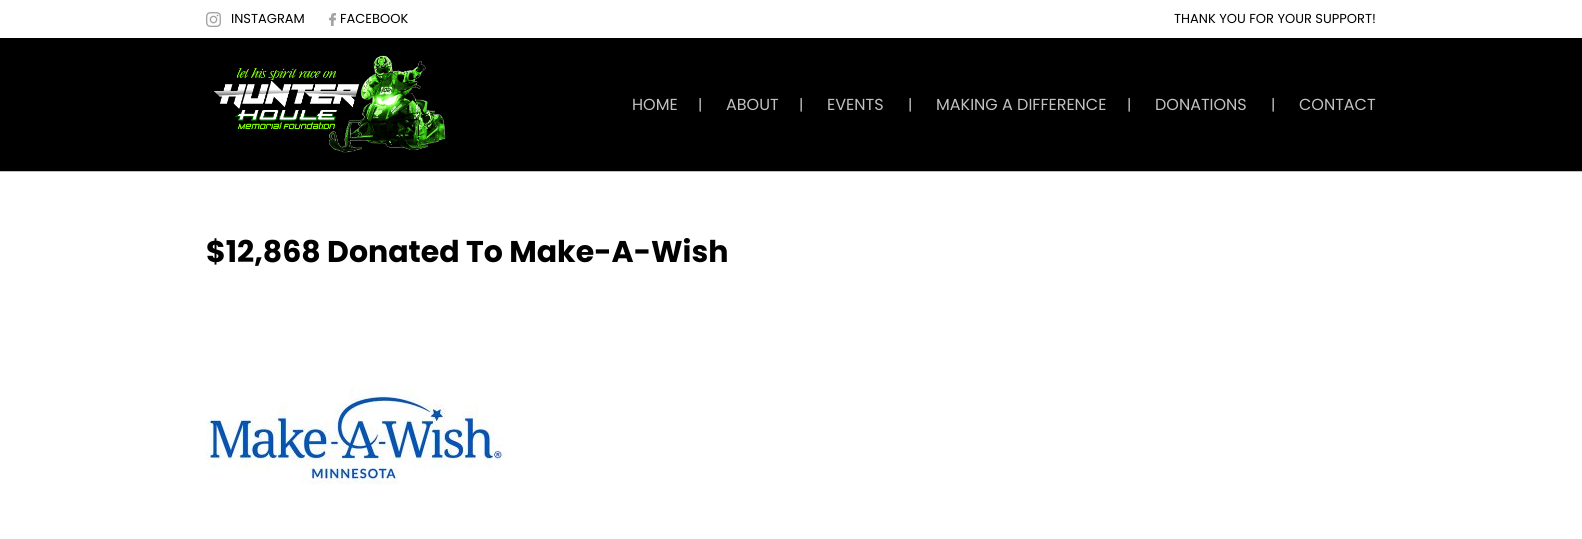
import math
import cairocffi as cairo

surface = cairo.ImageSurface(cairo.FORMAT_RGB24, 1582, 539)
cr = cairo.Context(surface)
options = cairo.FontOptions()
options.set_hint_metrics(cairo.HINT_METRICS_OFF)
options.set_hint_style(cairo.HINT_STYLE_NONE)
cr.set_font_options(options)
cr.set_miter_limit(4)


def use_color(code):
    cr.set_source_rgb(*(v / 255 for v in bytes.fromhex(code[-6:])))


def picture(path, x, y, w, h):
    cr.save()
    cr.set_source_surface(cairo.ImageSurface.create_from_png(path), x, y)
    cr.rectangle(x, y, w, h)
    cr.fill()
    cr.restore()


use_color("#ffffff")
cr.paint()
picture("img1.png", 206, 12, 15, 15)
cr.select_font_face("Poppins")
cr.set_font_size(13)
use_color("#000000")
cr.move_to(231, 23)
cr.show_text("INSTAGRAM")
picture("img2.png", 329, 13, 7, 13)
cr.move_to(340, 23)
cr.show_text("FACEBOOK")
cr.move_to(1174, 23)
cr.show_text("THANK YOU FOR YOUR SUPPORT!")
cr.rectangle(0, 38, 1582, 133)
cr.fill()
use_color("#c1c1c1")
cr.rectangle(0, 171, 1582, 1)
cr.fill()
picture("img3.png", 214, 55, 232, 98)
cr.set_font_size(16)
cr.move_to(632, 110)
cr.show_text("HOME")
cr.set_font_size(15)
cr.move_to(698, 110)
cr.show_text("|")
cr.set_font_size(16)
cr.move_to(726, 110)
cr.show_text("ABOUT")
cr.set_font_size(15)
cr.move_to(799, 110)
cr.show_text("|")
cr.set_font_size(16)
cr.move_to(827, 110)
cr.show_text("EVENTS")
cr.set_font_size(15)
cr.move_to(908, 110)
cr.show_text("|")
cr.set_font_size(16)
cr.move_to(936, 110)
cr.show_text("MAKING A DIFFERENCE")
cr.set_font_size(15)
cr.move_to(1127, 110)
cr.show_text("|")
cr.set_font_size(16)
cr.move_to(1155, 110)
cr.show_text("DONATIONS")
cr.set_font_size(15)
cr.move_to(1271, 110)
cr.show_text("|")
cr.set_font_size(16)
cr.move_to(1299, 110)
cr.show_text("CONTACT")
cr.select_font_face("Poppins", cairo.FONT_SLANT_NORMAL, cairo.FONT_WEIGHT_BOLD)
cr.set_font_size(30)
use_color("#000000")
cr.move_to(206, 262)
cr.show_text("$12,868 Donated To Make-A-Wish")
picture("img4.png", 206, 388, 300, 97)
surface.write_to_png("result.png")
